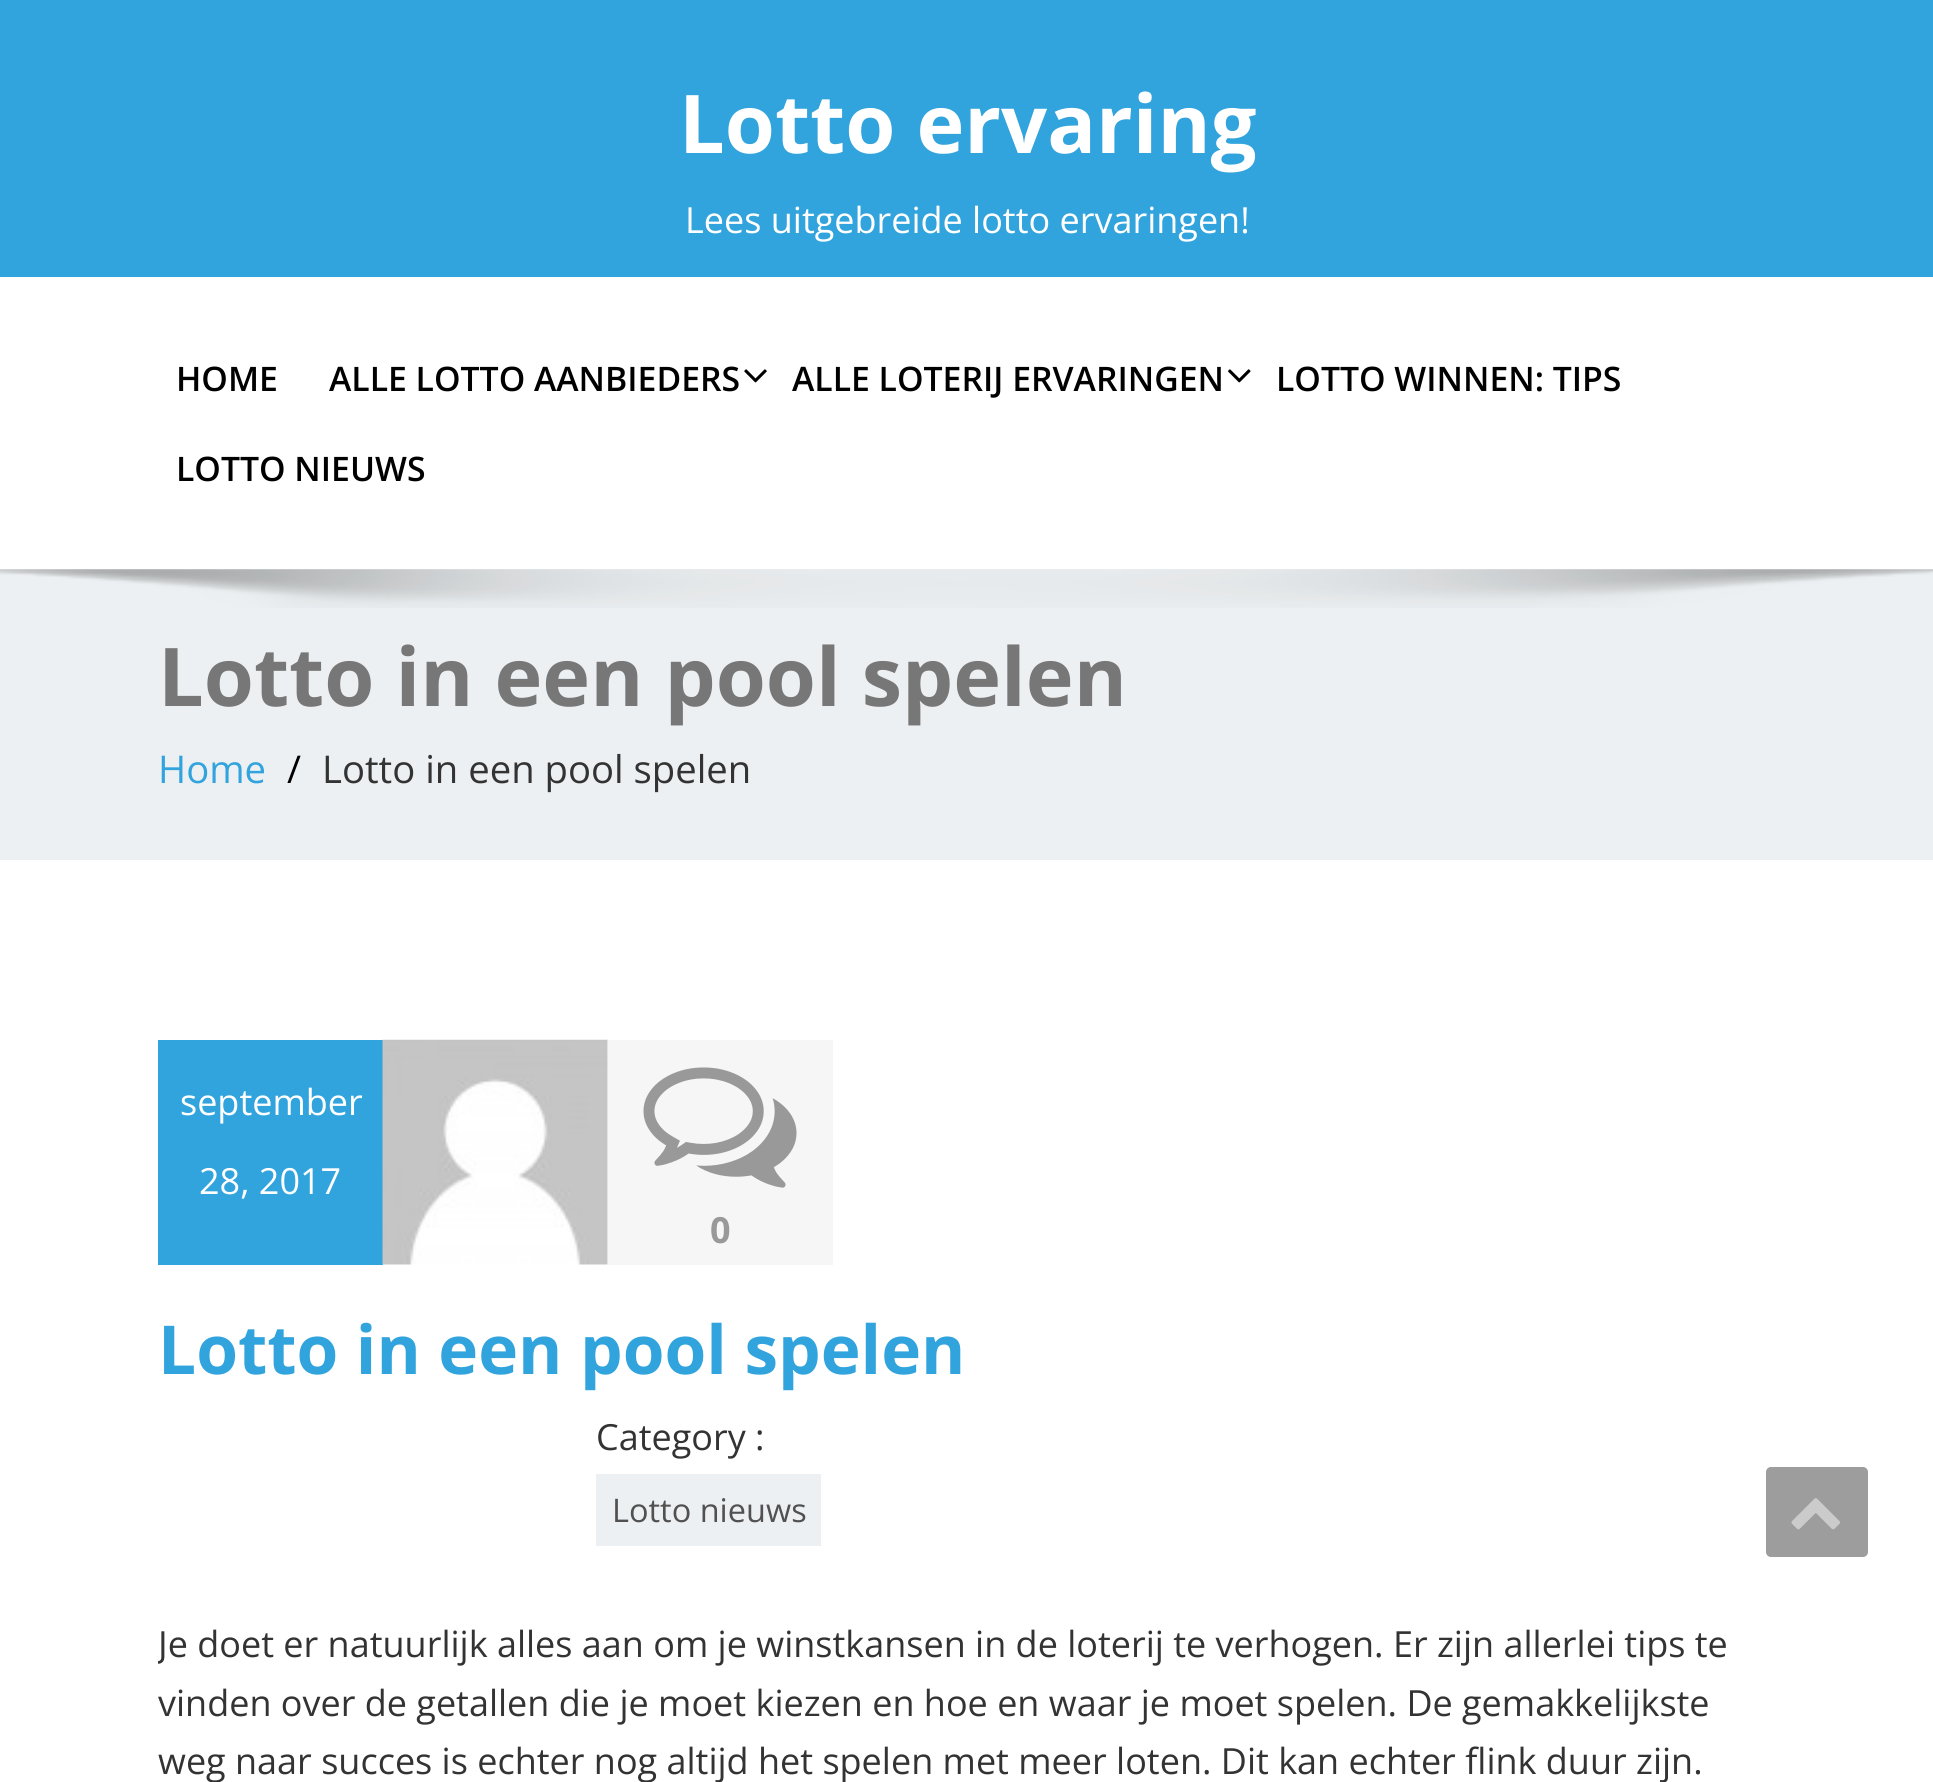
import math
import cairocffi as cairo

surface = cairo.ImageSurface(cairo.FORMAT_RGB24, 1933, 1782)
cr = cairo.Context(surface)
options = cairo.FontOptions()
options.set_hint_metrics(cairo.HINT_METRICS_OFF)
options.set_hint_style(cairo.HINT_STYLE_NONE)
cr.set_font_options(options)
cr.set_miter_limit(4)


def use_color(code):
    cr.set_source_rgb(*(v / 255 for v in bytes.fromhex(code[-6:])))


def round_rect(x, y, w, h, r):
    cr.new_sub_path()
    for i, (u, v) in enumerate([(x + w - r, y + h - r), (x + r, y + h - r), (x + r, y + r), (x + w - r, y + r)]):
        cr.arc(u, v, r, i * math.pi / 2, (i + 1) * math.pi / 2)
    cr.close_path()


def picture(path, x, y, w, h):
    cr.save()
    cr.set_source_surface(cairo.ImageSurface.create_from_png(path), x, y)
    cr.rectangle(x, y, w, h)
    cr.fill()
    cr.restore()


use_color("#ffffff")
cr.paint()
use_color("#31a3dd")
cr.rectangle(0, 0, 1933, 277)
cr.fill()
cr.select_font_face("Open Sans", cairo.FONT_SLANT_NORMAL, cairo.FONT_WEIGHT_BOLD)
cr.set_font_size(81)
use_color("#ffffff")
cr.move_to(679, 153)
cr.show_text("Lotto ervaring")
cr.select_font_face("Open Sans")
cr.set_font_size(36)
cr.move_to(685, 233)
cr.show_text("Lees uitgebreide lotto ervaringen!")
cr.select_font_face("Open Sans SemiBold")
cr.set_font_size(33.75)
use_color("#000000")
cr.move_to(176, 391)
cr.show_text("HOME")
cr.move_to(329, 391)
cr.show_text("ALLE LOTTO AANBIEDERS")
picture("img1.png", 744, 369, 23, 14)
cr.move_to(792, 391)
cr.show_text("ALLE LOTERIJ ERVARINGEN")
picture("img2.png", 1228, 369, 23, 14)
cr.move_to(1276, 391)
cr.show_text("LOTTO WINNEN: TIPS")
cr.move_to(176, 481)
cr.show_text("LOTTO NIEUWS")
use_color("#edf0f2")
cr.rectangle(0, 569, 1933, 291)
cr.fill()
picture("img3.png", 0, 569, 1933, 39)
cr.select_font_face("Open Sans", cairo.FONT_SLANT_NORMAL, cairo.FONT_WEIGHT_BOLD)
cr.set_font_size(81)
use_color("#777777")
cr.move_to(158, 706)
cr.show_text("Lotto in een pool spelen")
cr.select_font_face("Open Sans")
cr.set_font_size(38.25)
use_color("#31a3dd")
cr.move_to(158, 783)
cr.show_text("Home")
use_color("#000000")
cr.move_to(287, 783)
cr.show_text("/")
use_color("#333333")
cr.move_to(322, 783)
cr.show_text("Lotto in een pool spelen")
use_color("#31a3dd")
cr.rectangle(158, 1040, 225, 225)
cr.fill()
cr.set_font_size(36)
use_color("#ffffff")
cr.move_to(180, 1115)
cr.show_text("september")
cr.move_to(199, 1194)
cr.show_text("28, 2017")
picture("img4.png", 382, 1039, 226, 226)
use_color("#f6f6f6")
cr.rectangle(608, 1040, 225, 225)
cr.fill()
picture("img5.png", 643, 1067, 154, 121)
cr.select_font_face("Open Sans", cairo.FONT_SLANT_NORMAL, cairo.FONT_WEIGHT_BOLD)
use_color("#999999")
cr.move_to(710, 1243)
cr.show_text("0")
cr.set_font_size(67.5)
use_color("#31a3dd")
cr.move_to(158, 1374)
cr.show_text("Lotto in een pool spelen")
cr.select_font_face("Open Sans")
cr.set_font_size(36)
use_color("#333333")
cr.move_to(596, 1450)
cr.show_text("Category :")
use_color("#edf0f2")
cr.rectangle(596, 1474, 225, 72)
cr.fill()
cr.set_font_size(32.5)
use_color("#515151")
cr.move_to(612, 1522)
cr.show_text("Lotto nieuws")
cr.save()
cr.rectangle(158, 1040, 1620, 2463)
cr.clip()
cr.set_font_size(36)
use_color("#333333")
cr.move_to(158, 1657)
cr.show_text("Je doet er natuurlijk alles aan om je winstkansen in de loterij te verhogen. Er zijn allerlei tips te")
cr.restore()
cr.set_font_size(36)
use_color("#333333")
cr.move_to(158, 1716)
cr.show_text("vinden over de getallen die je moet kiezen en hoe en waar je moet spelen. De gemakkelijkste")
cr.move_to(158, 1774)
cr.show_text("weg naar succes is echter nog altijd het spelen met meer loten. Dit kan echter flink duur zijn.")
use_color("#9d9d9d")
round_rect(1766, 1467, 102, 90, 5)
cr.fill()
picture("img6.png", 1791, 1498, 49, 32)
surface.write_to_png("result.png")
